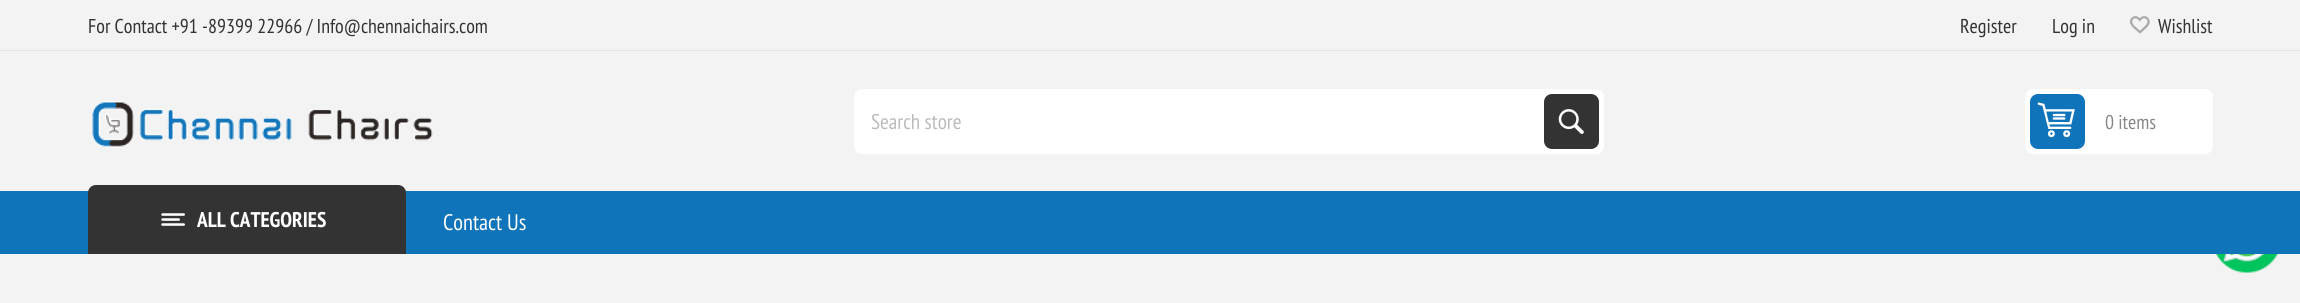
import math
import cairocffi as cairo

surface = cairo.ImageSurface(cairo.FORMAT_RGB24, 2300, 303)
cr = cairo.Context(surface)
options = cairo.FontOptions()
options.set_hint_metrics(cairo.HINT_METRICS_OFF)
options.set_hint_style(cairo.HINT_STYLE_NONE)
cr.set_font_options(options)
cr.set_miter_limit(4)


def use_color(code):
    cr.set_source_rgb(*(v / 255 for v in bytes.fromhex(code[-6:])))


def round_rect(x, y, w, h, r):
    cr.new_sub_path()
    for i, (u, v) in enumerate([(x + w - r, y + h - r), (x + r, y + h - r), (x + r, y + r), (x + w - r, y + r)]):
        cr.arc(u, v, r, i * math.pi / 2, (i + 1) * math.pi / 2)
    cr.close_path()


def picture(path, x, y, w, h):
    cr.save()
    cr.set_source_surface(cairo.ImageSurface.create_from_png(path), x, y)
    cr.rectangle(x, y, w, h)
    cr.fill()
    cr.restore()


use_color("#f3f3f3")
cr.paint()
cr.select_font_face("PT Sans Narrow")
cr.set_font_size(20)
use_color("#333333")
cr.move_to(88, 33)
cr.show_text("For Contact +91 -89399 22966 / Info@chennaichairs.com")
cr.move_to(1960, 33)
cr.show_text("Register")
cr.move_to(2052, 33)
cr.show_text("Log in")
picture("img1.png", 2130, 16, 20, 18)
cr.move_to(2158, 33)
cr.show_text("Wishlist")
use_color("#e3e3e3")
cr.rectangle(0, 50, 2300, 1)
cr.fill()
picture("img2.png", 92, 101, 341, 47)
use_color("#ffffff")
round_rect(854, 89, 750, 65, 8)
cr.fill()
cr.set_font_size(21.25)
use_color("#bbbbbb")
cr.move_to(871, 129)
cr.show_text("Search store")
use_color("#333333")
round_rect(1544, 94, 55, 55, 8)
cr.fill()
picture("img3.png", 1558, 109, 26, 25)
use_color("#ffffff")
round_rect(2025, 89, 188, 65, 8)
cr.fill()
use_color("#1074ba")
round_rect(2030, 94, 55, 55, 8)
cr.fill()
picture("img4.png", 2037, 102, 38, 36)
cr.set_font_size(20)
use_color("#888888")
cr.move_to(2105, 129)
cr.show_text("0 items")
use_color("#1074ba")
cr.rectangle(0, 191, 2300, 63)
cr.fill()
use_color("#333333")
cr.new_path()
cr.move_to(96, 185)
cr.line_to(398, 185)
cr.curve_to(402.5, 185, 406, 188.5, 406, 193)
cr.line_to(406, 254)
cr.line_to(88, 254)
cr.line_to(88, 193)
cr.curve_to(88, 188.5, 91.5, 185, 96, 185)
cr.close_path()
cr.fill()
picture("img5.png", 161, 213, 24, 13)
cr.select_font_face("PT Sans Narrow", cairo.FONT_SLANT_NORMAL, cairo.FONT_WEIGHT_BOLD)
cr.set_font_size(21.25)
use_color("#ffffff")
cr.move_to(197, 227)
cr.show_text("ALL CATEGORIES")
cr.select_font_face("PT Sans Narrow")
cr.set_font_size(22.5)
cr.move_to(443, 230)
cr.show_text("Contact Us")
picture("img6.png", 2216, 254, 62, 19)
surface.write_to_png("result.png")
